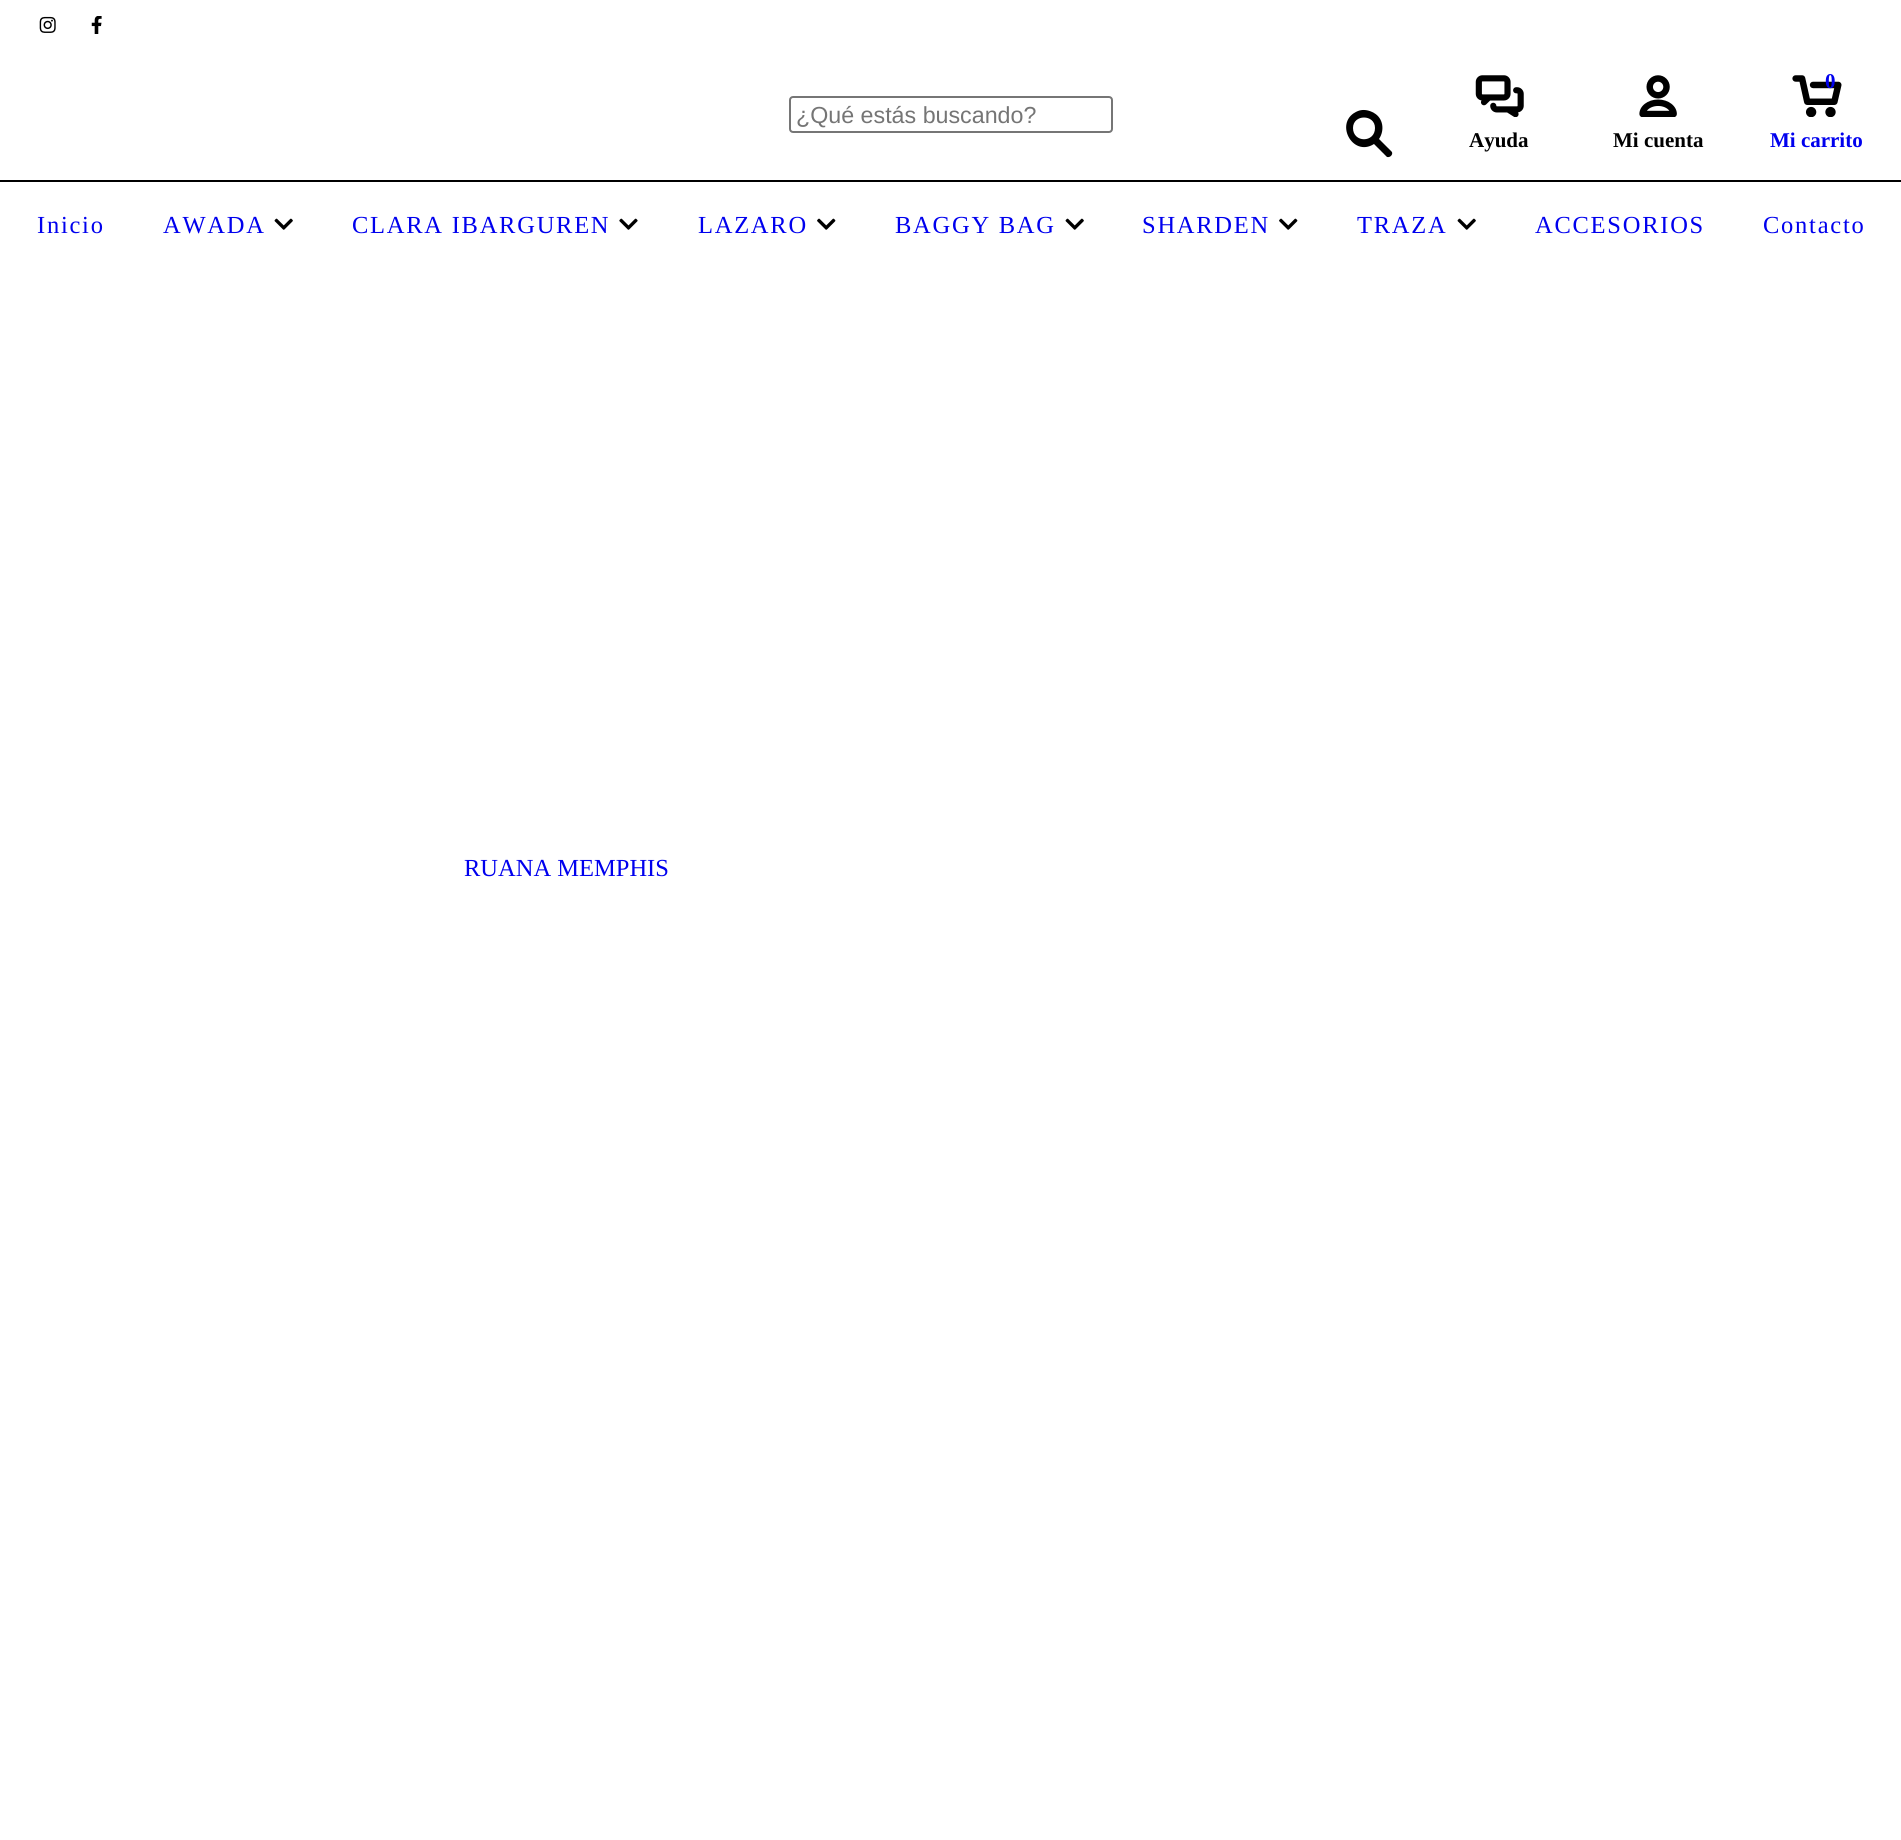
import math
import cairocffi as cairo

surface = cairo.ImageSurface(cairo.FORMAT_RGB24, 1901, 1840)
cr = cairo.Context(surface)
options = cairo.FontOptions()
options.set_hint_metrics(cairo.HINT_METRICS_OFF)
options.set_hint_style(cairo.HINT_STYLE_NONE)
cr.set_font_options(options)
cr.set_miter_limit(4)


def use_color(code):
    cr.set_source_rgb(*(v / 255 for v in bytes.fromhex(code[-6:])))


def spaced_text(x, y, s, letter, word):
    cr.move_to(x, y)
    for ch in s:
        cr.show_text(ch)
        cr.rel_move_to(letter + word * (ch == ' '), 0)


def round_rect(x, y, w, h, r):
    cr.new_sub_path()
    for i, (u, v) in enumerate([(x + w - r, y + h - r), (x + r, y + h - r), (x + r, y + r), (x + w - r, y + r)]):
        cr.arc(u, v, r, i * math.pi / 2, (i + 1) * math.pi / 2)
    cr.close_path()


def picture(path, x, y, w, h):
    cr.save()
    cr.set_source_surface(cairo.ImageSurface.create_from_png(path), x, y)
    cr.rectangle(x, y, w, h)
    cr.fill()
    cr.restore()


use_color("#ffffff")
cr.paint()
picture("img1.png", 39, 16, 17, 17)
picture("img2.png", 91, 16, 11, 18)
round_rect(790, 97, 322, 35, 3)
use_color("#767676")
cr.stroke()
cr.select_font_face("Liberation Sans")
cr.set_font_size(23.25)
use_color("#757575")
cr.move_to(796, 123)
cr.show_text("¿Qué estás buscando?")
use_color("#000000")
cr.new_path()
cr.move_to(1391, 151)
cr.line_to(1379, 139)
cr.curve_to(1385, 130, 1383, 118, 1374, 113)
cr.curve_to(1369, 110, 1363, 109, 1358, 111)
cr.curve_to(1333, 121, 1352, 158, 1374, 144)
cr.line_to(1387, 157)
cr.curve_to(1391, 158, 1394, 153, 1391, 151)
cr.close_path()
cr.move_to(1353, 128)
cr.curve_to(1353, 114, 1375, 114, 1375, 128)
cr.curve_to(1375, 143, 1353, 143, 1353, 128)
cr.close_path()
cr.fill()
picture("img3.png", 1475, 75, 49, 42)
cr.select_font_face("Liberation Serif", cairo.FONT_SLANT_NORMAL, cairo.FONT_WEIGHT_BOLD)
cr.set_font_size(21)
cr.move_to(1469, 147)
cr.show_text("Ayuda")
picture("img4.png", 1639, 75, 38, 42)
cr.move_to(1613, 147)
cr.show_text("Mi cuenta")
picture("img5.png", 1792, 75, 50, 42)
use_color("#0000ee")
cr.move_to(1825, 88)
cr.show_text("0")
cr.move_to(1770, 147)
cr.show_text("Mi carrito")
use_color("#000000")
cr.rectangle(0, 180, 1901, 2)
cr.fill()
cr.select_font_face("Liberation Serif")
cr.set_font_size(24.5)
use_color("#0000ee")
spaced_text(37, 233, "Inicio", 1.75, 0)
spaced_text(163, 233, "AWADA", 1.75, 0)
picture("img6.png", 274, 218, 19, 12)
spaced_text(352, 233, "CLARA IBARGUREN", 1.75, 0)
picture("img7.png", 619, 218, 19, 12)
spaced_text(698, 233, "LAZARO", 1.75, 0)
picture("img8.png", 817, 218, 19, 12)
spaced_text(895, 233, "BAGGY BAG", 1.75, 0)
picture("img6.png", 1065, 218, 19, 12)
spaced_text(1142, 233, "SHARDEN", 1.75, 0)
picture("img8.png", 1279, 218, 19, 12)
spaced_text(1357, 233, "TRAZA", 1.75, 0)
picture("img6.png", 1457, 218, 19, 12)
spaced_text(1535, 233, "ACCESORIOS", 1.75, 0)
spaced_text(1763, 233, "Contacto", 1.75, 0)
cr.move_to(464, 876)
cr.show_text("RUANA MEMPHIS")
surface.write_to_png("result.png")
